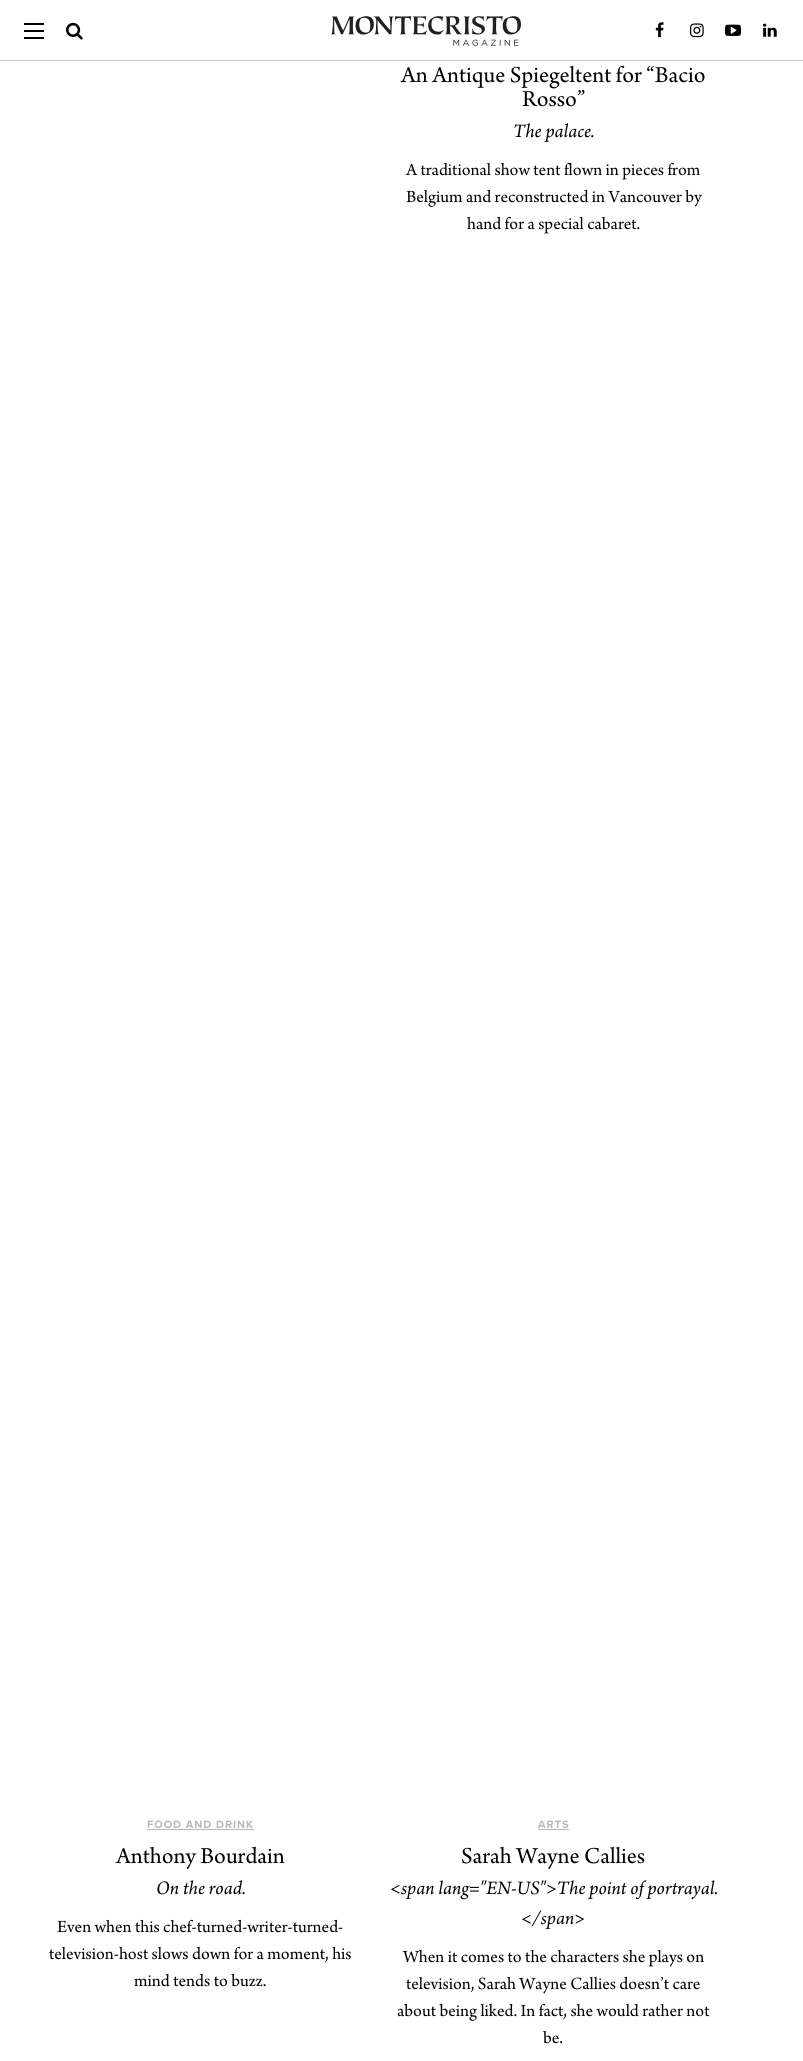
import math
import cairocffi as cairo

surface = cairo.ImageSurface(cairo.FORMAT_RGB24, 803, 2061)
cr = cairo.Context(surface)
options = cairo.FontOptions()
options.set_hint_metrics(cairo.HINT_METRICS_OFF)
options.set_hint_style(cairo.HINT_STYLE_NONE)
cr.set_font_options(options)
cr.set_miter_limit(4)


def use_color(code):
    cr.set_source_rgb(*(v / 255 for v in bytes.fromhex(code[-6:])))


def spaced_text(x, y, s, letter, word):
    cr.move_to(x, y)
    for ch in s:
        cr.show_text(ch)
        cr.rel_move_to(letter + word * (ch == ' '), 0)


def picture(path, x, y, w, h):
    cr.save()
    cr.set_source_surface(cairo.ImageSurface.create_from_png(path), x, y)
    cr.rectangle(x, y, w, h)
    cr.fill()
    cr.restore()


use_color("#ffffff")
cr.paint()
use_color("#cccccc")
cr.rectangle(0, 60, 803, 1)
cr.fill()
picture("img1.png", 331, 16, 190, 30)
use_color("#000000")
cr.rectangle(24, 23, 20, 2)
cr.fill()
cr.rectangle(24, 30, 20, 2)
cr.fill()
cr.rectangle(24, 37, 20, 2)
cr.fill()
picture("img2.png", 66, 22, 17, 18)
picture("img3.png", 655, 22, 9, 16)
picture("img4.png", 690, 23, 14, 15)
picture("img5.png", 725, 24, 16, 12)
picture("img6.png", 763, 23, 14, 14)
cr.select_font_face("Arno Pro")
cr.set_font_size(24)
cr.move_to(401, 82)
cr.show_text("An Antique Spiegeltent for “Bacio")
cr.move_to(522, 106)
cr.show_text("Rosso”")
cr.select_font_face("Arno Pro", cairo.FONT_SLANT_ITALIC)
cr.set_font_size(20)
cr.move_to(513, 137)
cr.show_text("The palace.")
cr.select_font_face("Arno Pro")
cr.set_font_size(18)
cr.move_to(406, 175)
cr.show_text("A traditional show tent flown in pieces from")
cr.move_to(406, 202)
cr.show_text("Belgium and reconstructed in Vancouver by")
cr.move_to(467, 229)
cr.show_text("hand for a special cabaret.")
cr.select_font_face("Proxima Nova", cairo.FONT_SLANT_NORMAL, cairo.FONT_WEIGHT_BOLD)
cr.set_font_size(11)
use_color("#b8b7b4")
spaced_text(147, 1828, "FOOD AND DRINK", 1, 0)
cr.rectangle(147, 1829, 107, 1)
cr.fill()
cr.select_font_face("Arno Pro")
cr.set_font_size(24)
use_color("#000000")
cr.move_to(116, 1863)
cr.show_text("Anthony Bourdain")
cr.select_font_face("Arno Pro", cairo.FONT_SLANT_ITALIC)
cr.set_font_size(20)
cr.move_to(156, 1894)
cr.show_text("On the road.")
cr.select_font_face("Arno Pro")
cr.set_font_size(18)
cr.move_to(57, 1932)
cr.show_text("Even when this chef-turned-writer-turned-")
cr.move_to(49, 1959)
cr.show_text("television-host slows down for a moment, his")
cr.move_to(134, 1986)
cr.show_text("mind tends to buzz.")
cr.select_font_face("Proxima Nova", cairo.FONT_SLANT_NORMAL, cairo.FONT_WEIGHT_BOLD)
cr.set_font_size(11)
use_color("#b8b7b4")
spaced_text(538, 1828, "ARTS", 1, 0)
cr.rectangle(538, 1829, 31, 1)
cr.fill()
cr.select_font_face("Arno Pro")
cr.set_font_size(24)
use_color("#000000")
cr.move_to(461, 1863)
cr.show_text("Sarah Wayne Callies")
cr.select_font_face("Arno Pro", cairo.FONT_SLANT_ITALIC)
cr.set_font_size(20)
cr.move_to(390, 1894)
cr.show_text("<span lang=\"EN-US\">The point of portrayal.")
cr.move_to(521, 1924)
cr.show_text("</span>")
cr.select_font_face("Arno Pro")
cr.set_font_size(18)
cr.move_to(403, 1962)
cr.show_text("When it comes to the characters she plays on")
cr.move_to(406, 1989)
cr.show_text("television, Sarah Wayne Callies doesn’t care")
cr.move_to(397, 2016)
cr.show_text("about being liked. In fact, she would rather not")
cr.move_to(543, 2043)
cr.show_text("be.")
surface.write_to_png("result.png")
